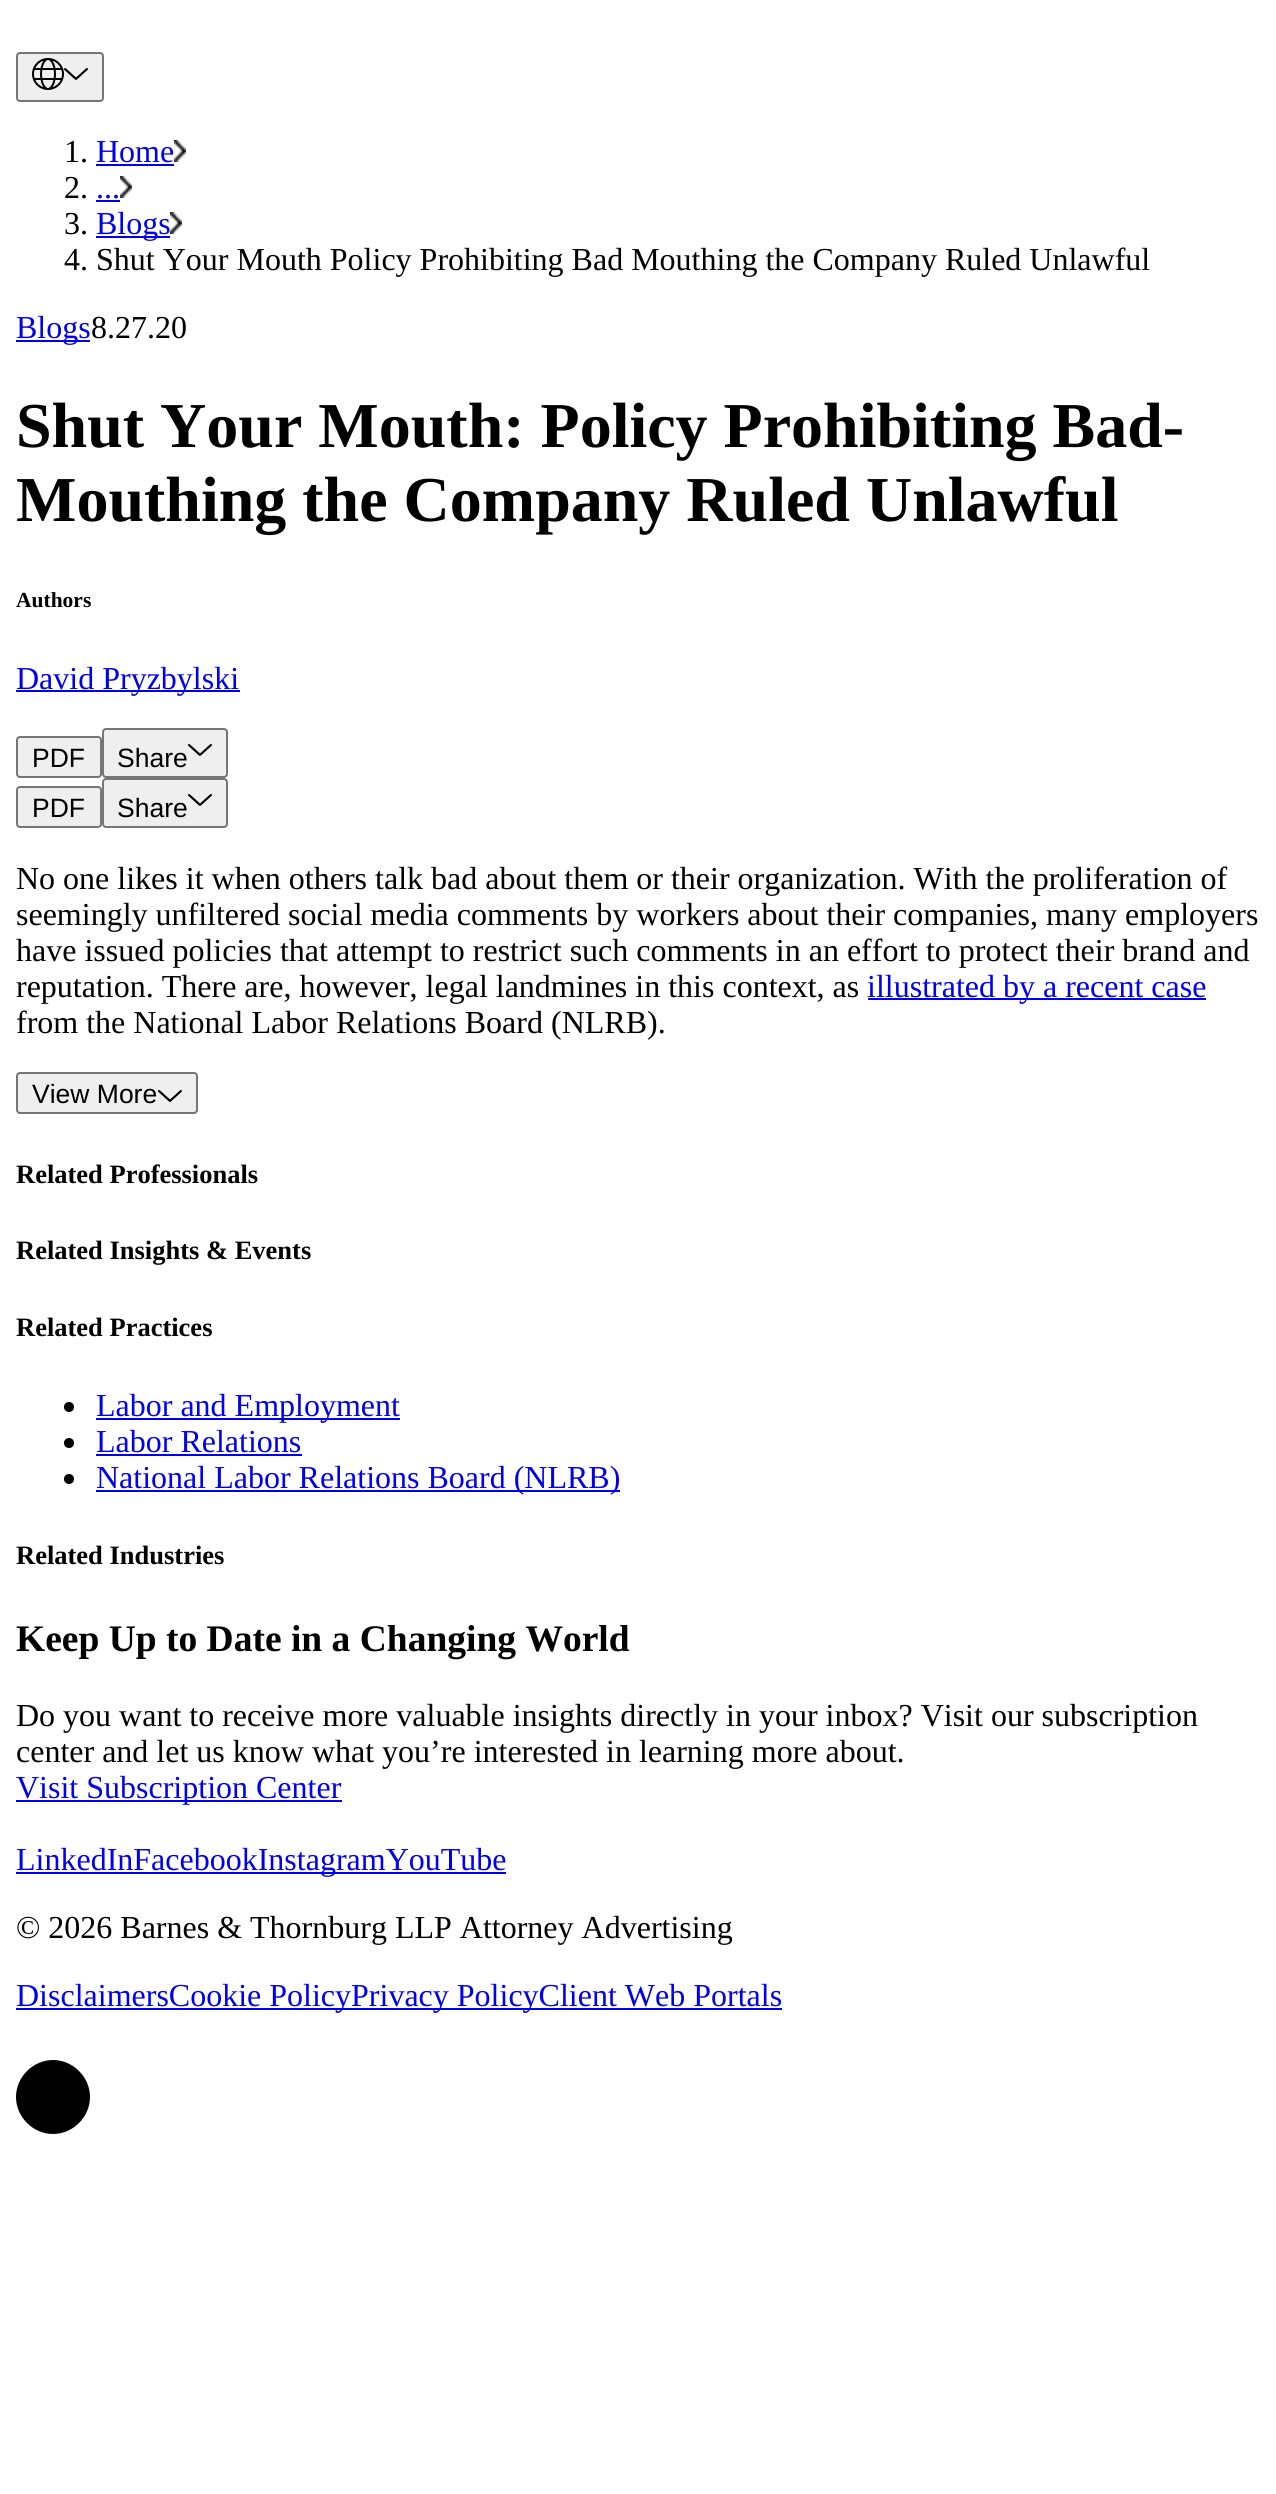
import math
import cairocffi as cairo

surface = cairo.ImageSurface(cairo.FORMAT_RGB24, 1276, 2494)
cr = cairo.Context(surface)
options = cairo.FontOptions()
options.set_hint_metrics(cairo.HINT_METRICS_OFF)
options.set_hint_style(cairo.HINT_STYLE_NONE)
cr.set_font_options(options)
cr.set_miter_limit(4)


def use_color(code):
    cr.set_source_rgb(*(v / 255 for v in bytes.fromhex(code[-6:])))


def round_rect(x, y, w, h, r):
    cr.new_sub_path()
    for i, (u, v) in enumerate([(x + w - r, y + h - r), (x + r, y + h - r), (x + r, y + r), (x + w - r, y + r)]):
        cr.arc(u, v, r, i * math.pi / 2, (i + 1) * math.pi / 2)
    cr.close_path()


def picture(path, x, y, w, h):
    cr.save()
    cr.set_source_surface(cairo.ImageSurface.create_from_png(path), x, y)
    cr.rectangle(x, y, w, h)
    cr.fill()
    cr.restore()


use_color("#ffffff")
cr.paint()
use_color("#efefef")
round_rect(17, 53, 86, 48, 3)
cr.fill_preserve()
use_color("#767676")
cr.stroke()
picture("img1.png", 32, 58, 32, 32)
picture("img2.png", 64, 68, 24, 12)
cr.select_font_face("Liberation Serif")
cr.set_font_size(32)
use_color("#000000")
cr.move_to(64, 162)
cr.show_text("1.")
use_color("#0000ee")
cr.move_to(96, 162)
cr.show_text("Home")
cr.rectangle(96, 164, 78, 2)
cr.fill()
picture("img3.png", 174, 140, 12, 22)
use_color("#000000")
cr.move_to(64, 198)
cr.show_text("2.")
use_color("#0000ee")
cr.move_to(96, 198)
cr.show_text("...")
cr.rectangle(96, 200, 24, 2)
cr.fill()
picture("img3.png", 120, 176, 12, 22)
use_color("#000000")
cr.move_to(64, 234)
cr.show_text("3.")
use_color("#0000ee")
cr.rectangle(96, 236, 74, 2)
cr.fill()
cr.move_to(96, 234)
cr.show_text("Blogs")
picture("img3.png", 170, 212, 12, 22)
use_color("#000000")
cr.move_to(64, 270)
cr.show_text("4. Shut Your Mouth Policy Prohibiting Bad Mouthing the Company Ruled Unlawful")
use_color("#0000ee")
cr.rectangle(16, 340, 74, 2)
cr.fill()
cr.move_to(16, 338)
cr.show_text("Blogs")
use_color("#000000")
cr.move_to(91, 338)
cr.show_text("8.27.20")
cr.select_font_face("Liberation Serif", cairo.FONT_SLANT_NORMAL, cairo.FONT_WEIGHT_BOLD)
cr.set_font_size(64)
cr.move_to(16, 447)
cr.show_text("Shut Your Mouth: Policy Prohibiting Bad-")
cr.move_to(16, 521)
cr.show_text("Mouthing the Company Ruled Unlawful")
cr.set_font_size(21.5)
cr.move_to(16, 607)
cr.show_text("Authors")
use_color("#0000ee")
cr.rectangle(16, 690, 224, 2)
cr.fill()
cr.select_font_face("Liberation Serif")
cr.set_font_size(32)
cr.move_to(16, 689)
cr.show_text("David Pryzbylski")
use_color("#efefef")
round_rect(17, 737, 84, 40, 3)
cr.fill_preserve()
use_color("#767676")
cr.stroke()
cr.select_font_face("Liberation Sans")
cr.set_font_size(26.5)
use_color("#000000")
cr.move_to(32, 767)
cr.show_text("PDF")
use_color("#efefef")
round_rect(103, 729, 124, 48, 3)
cr.fill_preserve()
use_color("#767676")
cr.stroke()
use_color("#000000")
cr.move_to(117, 767)
cr.show_text("Share")
picture("img2.png", 188, 744, 24, 12)
use_color("#efefef")
round_rect(17, 787, 84, 40, 3)
cr.fill_preserve()
use_color("#767676")
cr.stroke()
use_color("#000000")
cr.move_to(32, 817)
cr.show_text("PDF")
use_color("#efefef")
round_rect(103, 779, 124, 48, 3)
cr.fill_preserve()
use_color("#767676")
cr.stroke()
use_color("#000000")
cr.move_to(117, 817)
cr.show_text("Share")
picture("img2.png", 188, 794, 24, 12)
cr.select_font_face("Liberation Serif")
cr.set_font_size(32)
cr.move_to(16, 889)
cr.show_text("No one likes it when others talk bad about them or their organization. With the proliferation of")
cr.move_to(16, 925)
cr.show_text("seemingly unfiltered social media comments by workers about their companies, many employers")
cr.move_to(16, 961)
cr.show_text("have issued policies that attempt to restrict such comments in an effort to protect their brand and")
cr.move_to(16, 997)
cr.show_text("reputation. There are, however, legal landmines in this context, as")
use_color("#0000ee")
cr.rectangle(868, 998, 338, 2)
cr.fill()
cr.move_to(867, 997)
cr.show_text("illustrated by a recent case")
use_color("#000000")
cr.move_to(16, 1033)
cr.show_text("from the National Labor Relations Board (NLRB).")
use_color("#efefef")
round_rect(17, 1073, 180, 40, 3)
cr.fill_preserve()
use_color("#767676")
cr.stroke()
cr.select_font_face("Liberation Sans")
cr.set_font_size(26.5)
use_color("#000000")
cr.move_to(32, 1103)
cr.show_text("View More")
picture("img4.png", 158, 1090, 24, 12)
cr.select_font_face("Liberation Serif", cairo.FONT_SLANT_NORMAL, cairo.FONT_WEIGHT_BOLD)
cr.move_to(16, 1183)
cr.show_text("Related Professionals")
cr.move_to(16, 1259)
cr.show_text("Related Insights & Events")
cr.move_to(16, 1336)
cr.show_text("Related Practices")
cr.new_path()
cr.arc(69, 1407, 5, 0, 2 * math.pi)
cr.fill()
use_color("#0000ee")
cr.rectangle(96, 1418, 304, 2)
cr.fill()
cr.select_font_face("Liberation Serif")
cr.set_font_size(32)
cr.move_to(96, 1416)
cr.show_text("Labor and Employment")
use_color("#000000")
cr.new_path()
cr.arc(69, 1443, 5, 0, 2 * math.pi)
cr.fill()
use_color("#0000ee")
cr.move_to(96, 1452)
cr.show_text("Labor Relations")
cr.rectangle(96, 1454, 206, 2)
cr.fill()
use_color("#000000")
cr.arc(69, 1479, 5, 0, 2 * math.pi)
cr.fill()
use_color("#0000ee")
cr.rectangle(96, 1490, 524, 2)
cr.fill()
cr.move_to(96, 1488)
cr.show_text("National Labor Relations Board (NLRB)")
cr.select_font_face("Liberation Serif", cairo.FONT_SLANT_NORMAL, cairo.FONT_WEIGHT_BOLD)
cr.set_font_size(26.5)
use_color("#000000")
cr.move_to(16, 1564)
cr.show_text("Related Industries")
cr.set_font_size(37.5)
cr.move_to(16, 1651)
cr.show_text("Keep Up to Date in a Changing World")
cr.select_font_face("Liberation Serif")
cr.set_font_size(32)
cr.move_to(16, 1726)
cr.show_text("Do you want to receive more valuable insights directly in your inbox? Visit our subscription")
cr.move_to(16, 1762)
cr.show_text("center and let us know what you’re interested in learning more about.")
use_color("#0000ee")
cr.rectangle(16, 1800, 326, 2)
cr.fill()
cr.move_to(16, 1798)
cr.show_text("Visit Subscription Center")
cr.rectangle(16, 1872, 490, 2)
cr.fill()
cr.move_to(16, 1870)
cr.show_text("LinkedInFacebookInstagramYouTube")
use_color("#000000")
cr.move_to(16, 1938)
cr.show_text("© 2026 Barnes & Thornburg LLP Attorney Advertising")
use_color("#0000ee")
cr.rectangle(16, 2008, 522, 2)
cr.fill()
cr.move_to(16, 2006)
cr.show_text("DisclaimersCookie PolicyPrivacy PolicyClient Web Portals")
cr.rectangle(538, 2008, 244, 2)
cr.fill()
use_color("#000000")
cr.new_path()
cr.move_to(16, 2097)
cr.curve_to(16, 2077, 33, 2060, 53, 2060)
cr.curve_to(73, 2060, 90, 2077, 90, 2097)
cr.curve_to(90, 2117, 73, 2134, 53, 2134)
cr.curve_to(33, 2134, 16, 2117, 16, 2097)
cr.close_path()
cr.fill()
surface.write_to_png("result.png")
